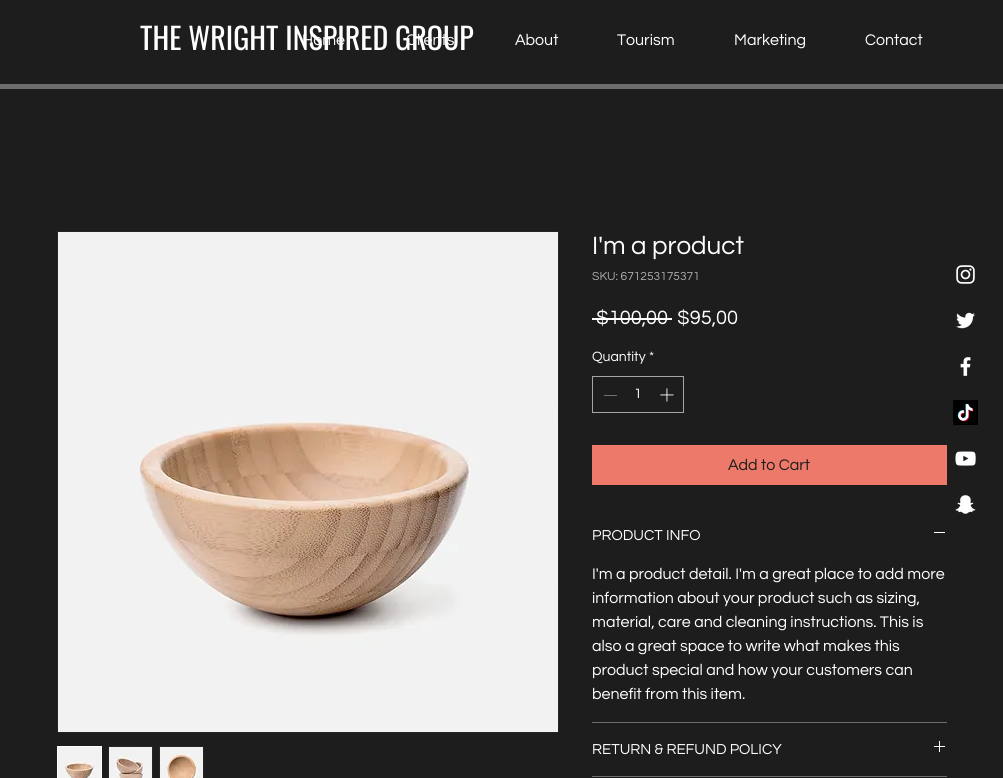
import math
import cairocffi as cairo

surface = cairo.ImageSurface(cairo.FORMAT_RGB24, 1003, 778)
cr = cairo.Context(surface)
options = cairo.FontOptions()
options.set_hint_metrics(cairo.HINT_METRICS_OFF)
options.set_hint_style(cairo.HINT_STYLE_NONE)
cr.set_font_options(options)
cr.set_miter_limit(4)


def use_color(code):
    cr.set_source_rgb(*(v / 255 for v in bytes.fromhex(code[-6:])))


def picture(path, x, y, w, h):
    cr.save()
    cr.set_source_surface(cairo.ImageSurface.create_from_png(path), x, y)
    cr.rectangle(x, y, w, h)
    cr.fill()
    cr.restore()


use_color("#1d1d1d")
cr.paint()
cr.select_font_face("Questrial")
cr.set_font_size(16)
use_color("#ffffff")
cr.move_to(302, 45)
cr.show_text("Home")
cr.move_to(406, 45)
cr.show_text("Clients")
cr.select_font_face("Oswald")
cr.set_font_size(30)
cr.move_to(140, 50)
cr.show_text("THE WRIGHT INSPIRED GROUP")
cr.select_font_face("Questrial")
cr.set_font_size(16)
cr.move_to(515, 45)
cr.show_text("About")
cr.move_to(617, 45)
cr.show_text("Tourism")
cr.move_to(734, 45)
cr.show_text("Marketing")
cr.move_to(865, 45)
cr.show_text("Contact")
use_color("#6e6d6d")
cr.rectangle(0, 84, 1003, 5)
cr.fill()
cr.rectangle(57.5, 231.5, 501, 501)
use_color("#262626")
cr.set_line_width(1)
cr.stroke()
picture("img1.png", 58, 232, 500, 500)
cr.rectangle(57.5, 746.5, 44, 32)
use_color("#ffffff")
cr.stroke()
picture("img2.png", 58, 747, 43, 31)
use_color("#262626")
cr.rectangle(108, 746, 45, 32)
cr.fill()
picture("img3.png", 109, 747, 43, 31)
cr.rectangle(159, 746, 45, 32)
cr.fill()
picture("img4.png", 160, 747, 43, 31)
cr.set_font_size(26)
use_color("#ffffff")
cr.move_to(592, 254)
cr.show_text("I'm a product")
cr.set_font_size(12)
use_color("#adadad")
cr.move_to(592, 280)
cr.show_text("SKU: 671253175371")
cr.set_font_size(20)
use_color("#ffffff")
cr.move_to(596, 324)
cr.show_text("$100,00")
cr.rectangle(592, 318, 80, 2)
cr.fill()
cr.move_to(677, 324)
cr.show_text("$95,00")
cr.set_font_size(14)
cr.move_to(592, 361)
cr.show_text("Quantity")
cr.move_to(649, 361)
cr.show_text("*")
cr.rectangle(592.5, 376.5, 91, 36)
use_color("#a5a5a5")
cr.stroke()
use_color("#727272")
cr.rectangle(604, 395, 13, 1)
cr.fill()
use_color("#ffffff")
cr.move_to(634, 398)
cr.show_text("1")
picture("img5.png", 660, 388, 14, 14)
use_color("#ec7969")
cr.rectangle(592, 445, 355, 40)
cr.fill()
cr.set_font_size(16)
use_color("#1d1d1d")
cr.move_to(728, 470)
cr.show_text("Add to Cart")
use_color("#6e6d6d")
cr.rectangle(592, 722, 355, 1)
cr.fill()
cr.set_font_size(15)
use_color("#ffffff")
cr.move_to(592, 540)
cr.show_text("PRODUCT INFO")
cr.rectangle(934, 532, 11, 1)
cr.fill()
cr.set_font_size(16)
cr.move_to(592, 579)
cr.show_text("I'm a product detail. I'm a great place to add more")
cr.move_to(592, 603)
cr.show_text("information about your product such as sizing,")
cr.move_to(592, 627)
cr.show_text("material, care and cleaning instructions. This is")
cr.move_to(592, 651)
cr.show_text("also a great space to write what makes this")
cr.move_to(592, 675)
cr.show_text("product special and how your customers can")
cr.move_to(592, 699)
cr.show_text("benefit from this item.")
use_color("#6e6d6d")
cr.rectangle(592, 776, 355, 1)
cr.fill()
cr.set_font_size(15)
use_color("#ffffff")
cr.move_to(592, 754)
cr.show_text("RETURN & REFUND POLICY")
picture("img6.png", 934, 741, 11, 11)
picture("img7.png", 956, 265, 19, 19)
picture("img8.png", 956, 312, 19, 17)
picture("img9.png", 960, 357, 11, 19)
picture("img10.png", 953, 400, 25, 25)
picture("img11.png", 955, 451, 21, 15)
picture("img12.png", 955, 495, 21, 19)
surface.write_to_png("result.png")
